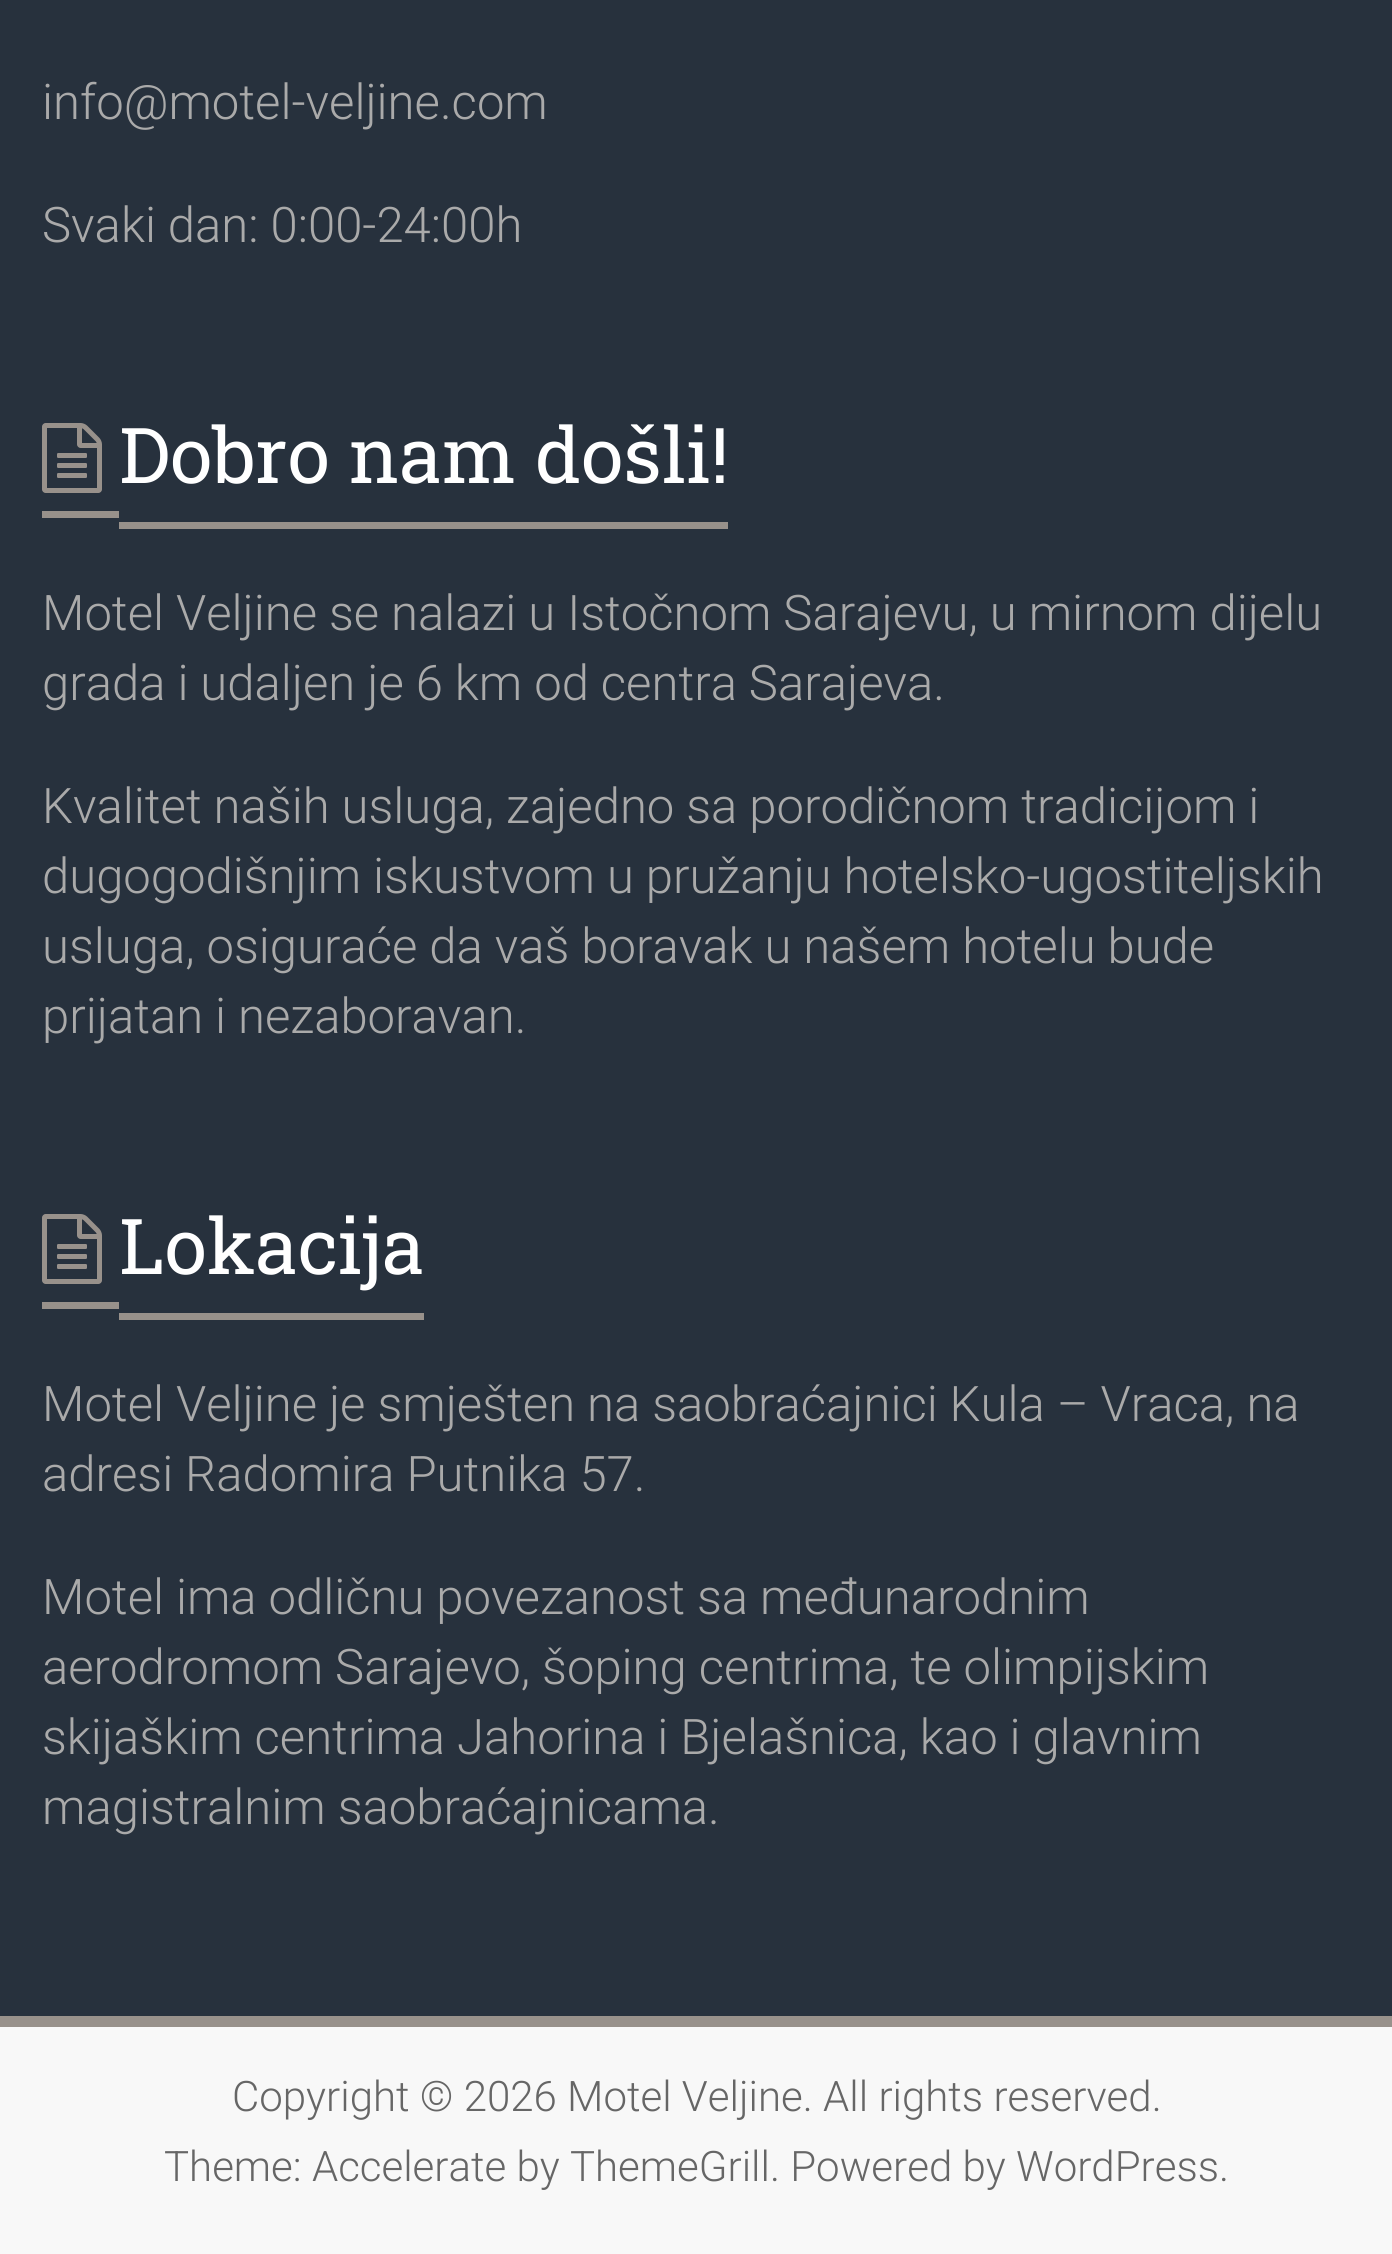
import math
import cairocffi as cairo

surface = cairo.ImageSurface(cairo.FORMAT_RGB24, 1392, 2254)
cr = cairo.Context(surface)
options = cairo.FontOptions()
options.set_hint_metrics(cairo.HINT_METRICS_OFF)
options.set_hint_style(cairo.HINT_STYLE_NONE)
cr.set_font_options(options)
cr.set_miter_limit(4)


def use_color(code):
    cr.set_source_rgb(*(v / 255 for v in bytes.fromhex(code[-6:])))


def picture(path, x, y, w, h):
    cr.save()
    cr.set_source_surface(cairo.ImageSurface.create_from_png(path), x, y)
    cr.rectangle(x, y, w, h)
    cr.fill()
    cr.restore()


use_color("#27313d")
cr.paint()
cr.select_font_face("Roboto Light")
cr.set_font_size(49)
use_color("#aaaaaa")
cr.move_to(42, 119)
cr.show_text("info@motel-veljine.com")
cr.move_to(42, 242)
cr.show_text("Svaki dan: 0:00-24:00h")
picture("img1.png", 42, 423, 60, 70)
cr.select_font_face("Roboto Slab")
cr.set_font_size(77)
use_color("#ffffff")
cr.move_to(119, 483)
cr.show_text("Dobro nam došli!")
use_color("#98918b")
cr.rectangle(42, 511, 77, 7)
cr.fill()
cr.rectangle(119, 522, 609, 7)
cr.fill()
cr.select_font_face("Roboto Light")
cr.set_font_size(49)
use_color("#aaaaaa")
cr.move_to(42, 630)
cr.show_text("Motel Veljine se nalazi u Istočnom Sarajevu, u mirnom dijelu")
cr.move_to(42, 700)
cr.show_text("grada i udaljen je 6 km od centra Sarajeva.")
cr.move_to(42, 823)
cr.show_text("Kvalitet naših usluga, zajedno sa porodičnom tradicijom i")
cr.move_to(42, 893)
cr.show_text("dugogodišnjim iskustvom u pružanju hotelsko-ugostiteljskih")
cr.move_to(42, 963)
cr.show_text("usluga, osiguraće da vaš boravak u našem hotelu bude")
cr.move_to(42, 1033)
cr.show_text("prijatan i nezaboravan.")
picture("img1.png", 42, 1214, 60, 70)
cr.select_font_face("Roboto Slab")
cr.set_font_size(77)
use_color("#ffffff")
cr.move_to(119, 1274)
cr.show_text("Lokacija")
use_color("#98918b")
cr.rectangle(42, 1302, 77, 7)
cr.fill()
cr.rectangle(119, 1313, 305, 7)
cr.fill()
cr.select_font_face("Roboto Light")
cr.set_font_size(49)
use_color("#aaaaaa")
cr.move_to(42, 1421)
cr.show_text("Motel Veljine je smješten na saobraćajnici Kula – Vraca, na")
cr.move_to(42, 1491)
cr.show_text("adresi Radomira Putnika 57.")
cr.move_to(42, 1614)
cr.show_text("Motel ima odličnu povezanost sa međunarodnim")
cr.move_to(42, 1684)
cr.show_text("aerodromom Sarajevo, šoping centrima, te olimpijskim")
cr.move_to(42, 1754)
cr.show_text("skijaškim centrima Jahorina i Bjelašnica, kao i glavnim")
cr.move_to(42, 1824)
cr.show_text("magistralnim saobraćajnicama.")
use_color("#f8f8f8")
cr.rectangle(0, 2027, 1392, 227)
cr.fill()
use_color("#98918b")
cr.rectangle(0, 2016, 1392, 11)
cr.fill()
cr.set_font_size(42)
use_color("#666666")
cr.move_to(232, 2111)
cr.show_text("Copyright © 2026 Motel Veljine. All rights reserved.")
cr.move_to(164, 2181)
cr.show_text("Theme: Accelerate by ThemeGrill. Powered by WordPress.")
surface.write_to_png("result.png")
